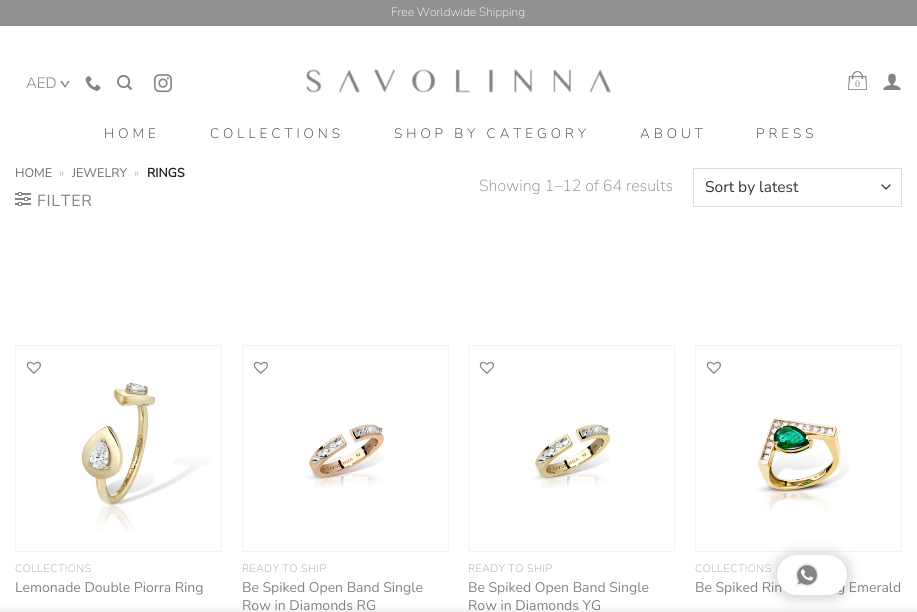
import math
import cairocffi as cairo

surface = cairo.ImageSurface(cairo.FORMAT_RGB24, 917, 612)
cr = cairo.Context(surface)
options = cairo.FontOptions()
options.set_hint_metrics(cairo.HINT_METRICS_OFF)
options.set_hint_style(cairo.HINT_STYLE_NONE)
cr.set_font_options(options)
cr.set_miter_limit(4)


def use_color(code):
    cr.set_source_rgb(*(v / 255 for v in bytes.fromhex(code[-6:])))


def spaced_text(x, y, s, letter, word):
    cr.move_to(x, y)
    for ch in s:
        cr.show_text(ch)
        cr.rel_move_to(letter + word * (ch == ' '), 0)


def round_rect(x, y, w, h, r):
    cr.new_sub_path()
    for i, (u, v) in enumerate([(x + w - r, y + h - r), (x + r, y + h - r), (x + r, y + r), (x + w - r, y + r)]):
        cr.arc(u, v, r, i * math.pi / 2, (i + 1) * math.pi / 2)
    cr.close_path()


def shadow(x, y, w, h, r, blur, alpha):
    cr.push_group_with_content(cairo.CONTENT_ALPHA)
    cr.set_operator(cairo.OPERATOR_SOURCE)
    for i in range(15, -16, -2):
        e = blur * i / 6
        if min(w, h) + 2 * e > 0:
            cr.set_source_rgba(0, 0, 0, alpha * math.erfc((i - 1) / 8.5) / 2)
            round_rect(x - e, y - e, w + 2 * e, h + 2 * e, max(0, min(r + e + blur * .6, min(w, h) / 2 + e)))
            cr.fill()
    cr.mask(cr.pop_group())


def picture(path, x, y, w, h):
    cr.save()
    cr.set_source_surface(cairo.ImageSurface.create_from_png(path), x, y)
    cr.rectangle(x, y, w, h)
    cr.fill()
    cr.restore()


use_color("#ffffff")
cr.paint()
use_color("#fcfcfc")
cr.rectangle(0, 152, 917, 1)
cr.fill()
use_color("#919191")
cr.rectangle(0, 0, 917, 26)
cr.fill()
cr.select_font_face("Nunito Sans ExtraLight")
cr.set_font_size(12)
use_color("#ffffff")
cr.move_to(391, 16)
cr.show_text("Free Worldwide Shipping")
picture("img1.png", 60, 81, 10, 7)
cr.select_font_face("Nunito Sans Light")
cr.set_font_size(15)
use_color("#848484")
cr.move_to(26, 88)
cr.show_text("AED")
picture("img2.png", 85, 76, 16, 15)
picture("img3.png", 117, 74, 15, 16)
picture("img4.png", 154, 74, 18, 19)
picture("img5.png", 306, 69, 305, 24)
picture("img6.png", 848, 71, 19, 19)
cr.select_font_face("Liberation Serif")
cr.set_font_size(10)
cr.move_to(855, 87)
cr.show_text("0")
picture("img7.png", 883, 73, 18, 17)
cr.select_font_face("Nunito Sans ExtraLight")
cr.set_font_size(13.6)
use_color("#222222")
spaced_text(104, 138, "HOME", 4, 0)
spaced_text(210, 138, "COLLECTIONS", 4, 0)
spaced_text(394, 138, "SHOP BY CATEGORY", 4, 0)
spaced_text(640, 138, "ABOUT", 4, 0)
spaced_text(756, 138, "PRESS", 4, 0)
cr.select_font_face("Nunito Sans")
cr.set_font_size(12.5)
use_color("#6e6e6e")
cr.move_to(15, 177)
cr.show_text("HOME")
cr.select_font_face("Nunito Sans Light")
use_color("#b2b2b2")
cr.move_to(59, 177)
cr.show_text("»")
cr.select_font_face("Nunito Sans")
use_color("#6e6e6e")
cr.move_to(72, 177)
cr.show_text("JEWELRY")
cr.select_font_face("Nunito Sans Light")
use_color("#b2b2b2")
cr.move_to(134, 177)
cr.show_text("»")
cr.select_font_face("Nunito Sans", cairo.FONT_SLANT_NORMAL, cairo.FONT_WEIGHT_BOLD)
use_color("#222222")
cr.move_to(147, 177)
cr.show_text("RINGS")
picture("img8.png", 15, 192, 16, 14)
cr.select_font_face("Nunito Sans")
cr.set_font_size(16)
use_color("#848484")
spaced_text(37, 206, "FILTER", 0.75, 0)
cr.select_font_face("Nunito Sans ExtraLight")
cr.move_to(479, 191)
cr.show_text("Showing 1–12 of 64 results")
cr.new_path()
cr.move_to(882, 185)
cr.line_to(886, 189)
cr.line_to(890, 185)
use_color("#333333")
cr.set_line_width(1.3)
cr.set_line_cap(cairo.LINE_CAP_ROUND)
cr.set_line_join(cairo.LINE_JOIN_ROUND)
cr.stroke()
cr.rectangle(693.5, 168.5, 208, 38)
use_color("#dddddd")
cr.set_line_width(1)
cr.set_line_cap(cairo.LINE_CAP_BUTT)
cr.set_line_join(cairo.LINE_JOIN_MITER)
cr.stroke()
cr.select_font_face("Nunito Sans")
cr.set_font_size(15.5)
use_color("#333333")
cr.move_to(705, 192)
cr.show_text("Sort by latest")
cr.rectangle(15.5, 345.5, 206, 206)
use_color("#f3f3f3")
cr.stroke()
picture("img9.png", 26, 361, 15, 13)
picture("img10.png", 81, 382, 131, 153)
cr.select_font_face("Nunito Sans ExtraLight")
cr.set_font_size(10.75)
use_color("#9d9d9d")
spaced_text(15, 572, "COLLECTIONS", 0.5, 0)
cr.select_font_face("Nunito Sans")
cr.set_font_size(14)
use_color("#848484")
cr.move_to(15, 592)
cr.show_text("Lemonade Double Piorra Ring")
cr.rectangle(242.5, 345.5, 206, 206)
use_color("#f3f3f3")
cr.stroke()
picture("img9.png", 253, 361, 15, 13)
picture("img11.png", 306, 424, 80, 65)
cr.select_font_face("Nunito Sans ExtraLight")
cr.set_font_size(10.75)
use_color("#9d9d9d")
spaced_text(242, 572, "READY TO SHIP", 0.5, 0)
cr.select_font_face("Nunito Sans")
cr.set_font_size(14)
use_color("#848484")
cr.move_to(242, 592)
cr.show_text("Be Spiked Open Band Single")
cr.move_to(242, 610)
cr.show_text("Row in Diamonds RG")
cr.rectangle(468.5, 345.5, 206, 206)
use_color("#f3f3f3")
cr.stroke()
picture("img9.png", 479, 361, 15, 13)
picture("img12.png", 532, 424, 79, 65)
cr.select_font_face("Nunito Sans ExtraLight")
cr.set_font_size(10.75)
use_color("#9d9d9d")
spaced_text(468, 572, "READY TO SHIP", 0.5, 0)
cr.select_font_face("Nunito Sans")
cr.set_font_size(14)
use_color("#848484")
cr.move_to(468, 592)
cr.show_text("Be Spiked Open Band Single")
cr.move_to(468, 610)
cr.show_text("Row in Diamonds YG")
cr.rectangle(695.5, 345.5, 206, 206)
use_color("#f3f3f3")
cr.stroke()
picture("img9.png", 706, 361, 15, 13)
picture("img13.png", 756, 417, 93, 96)
cr.select_font_face("Nunito Sans ExtraLight")
cr.set_font_size(10.75)
use_color("#9d9d9d")
spaced_text(695, 572, "COLLECTIONS", 0.5, 0)
cr.select_font_face("Nunito Sans")
cr.set_font_size(14)
use_color("#848484")
cr.move_to(695, 592)
cr.show_text("Be Spiked Rin")
cr.move_to(837, 592)
cr.show_text("g Emerald")
use_color("#202124")
shadow(777, 556, 70, 40, 20, 7.5, 0.28)
use_color("#ffffff")
round_rect(777, 555, 70, 40, 20)
cr.fill()
picture("img14.png", 795, 563, 24, 24)
use_color("#000000")
shadow(0, 612, 917, 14, 0, 4.5, 0.14)
surface.write_to_png("result.png")
